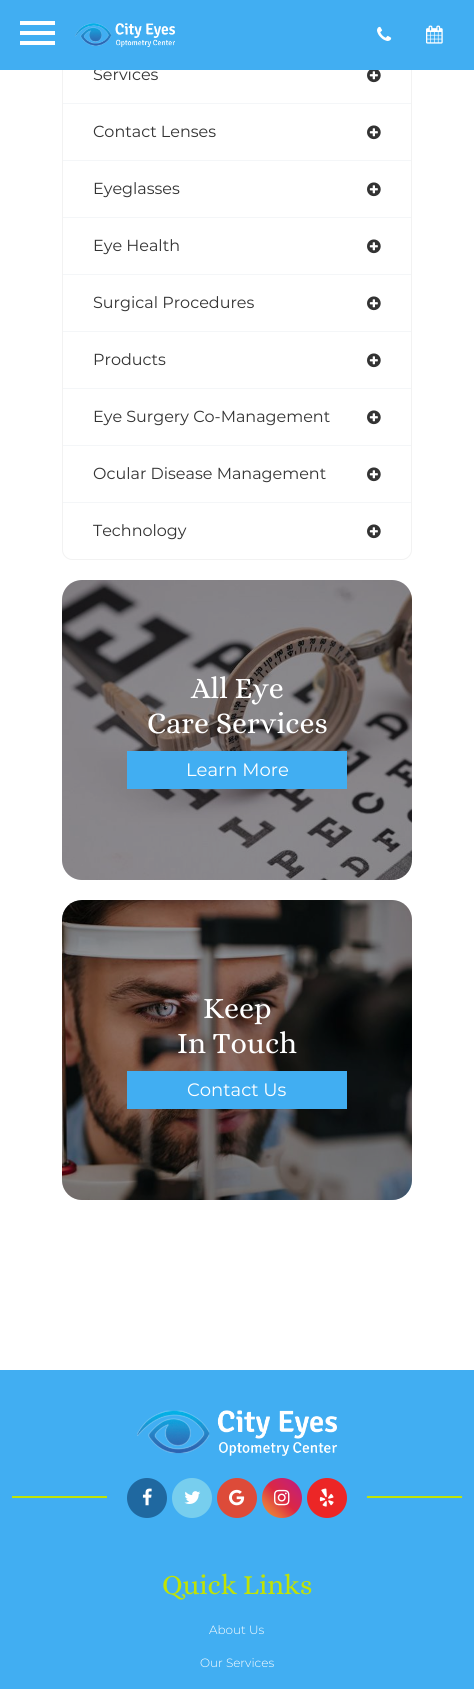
import math
import cairocffi as cairo

surface = cairo.ImageSurface(cairo.FORMAT_RGB24, 474, 1689)
cr = cairo.Context(surface)
options = cairo.FontOptions()
options.set_hint_metrics(cairo.HINT_METRICS_OFF)
options.set_hint_style(cairo.HINT_STYLE_NONE)
cr.set_font_options(options)
cr.set_miter_limit(4)


def use_color(code):
    cr.set_source_rgb(*(v / 255 for v in bytes.fromhex(code[-6:])))


def round_rect(x, y, w, h, r):
    cr.new_sub_path()
    for i, (u, v) in enumerate([(x + w - r, y + h - r), (x + r, y + h - r), (x + r, y + r), (x + w - r, y + r)]):
        cr.arc(u, v, r, i * math.pi / 2, (i + 1) * math.pi / 2)
    cr.close_path()


def picture(path, x, y, w, h):
    cr.save()
    cr.set_source_surface(cairo.ImageSurface.create_from_png(path), x, y)
    cr.rectangle(x, y, w, h)
    cr.fill()
    cr.restore()


use_color("#ffffff")
cr.paint()
cr.new_path()
cr.move_to(62.5, -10.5)
cr.line_to(411.5, -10.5)
cr.line_to(411.5, 550)
cr.curve_to(411.5, 555, 407, 559.5, 402, 559.5)
cr.line_to(72, 559.5)
cr.curve_to(67, 559.5, 62.5, 555, 62.5, 550)
cr.close_path()
use_color("#f2f2f2")
cr.set_line_width(1)
cr.stroke()
cr.select_font_face("Montserrat")
cr.set_font_size(16)
use_color("#333333")
cr.move_to(93, 80)
cr.show_text("Services")
use_color("#41aef2")
cr.rectangle(0, 0, 474, 70)
cr.fill()
use_color("#ffffff")
cr.rectangle(20, 41, 35, 4)
cr.fill()
cr.rectangle(20, 21, 35, 4)
cr.fill()
cr.rectangle(20, 31, 35, 4)
cr.fill()
picture("img1.png", 75, 23, 100, 24)
picture("img2.png", 377, 26, 15, 15)
picture("img3.png", 426, 25, 17, 19)
use_color("#f4f6f8")
cr.rectangle(63, 103, 348, 1)
cr.fill()
picture("img4.png", 367, 70, 14, 13)
cr.rectangle(63, 160, 348, 1)
cr.fill()
use_color("#333333")
cr.move_to(93, 137)
cr.show_text("Contact Lenses")
picture("img5.png", 367, 125, 14, 15)
use_color("#f4f6f8")
cr.rectangle(63, 217, 348, 1)
cr.fill()
use_color("#333333")
cr.move_to(93, 194)
cr.show_text("Eyeglasses")
picture("img5.png", 367, 182, 14, 15)
use_color("#f4f6f8")
cr.rectangle(63, 274, 348, 1)
cr.fill()
use_color("#333333")
cr.move_to(93, 251)
cr.show_text("Eye Health")
picture("img5.png", 367, 239, 14, 15)
use_color("#f4f6f8")
cr.rectangle(63, 331, 348, 1)
cr.fill()
use_color("#333333")
cr.move_to(93, 308)
cr.show_text("Surgical Procedures")
picture("img5.png", 367, 296, 14, 15)
use_color("#f4f6f8")
cr.rectangle(63, 388, 348, 1)
cr.fill()
use_color("#333333")
cr.move_to(93, 365)
cr.show_text("Products")
picture("img5.png", 367, 353, 14, 15)
use_color("#f4f6f8")
cr.rectangle(63, 445, 348, 1)
cr.fill()
use_color("#333333")
cr.move_to(93, 422)
cr.show_text("Eye Surgery Co-Management")
picture("img5.png", 367, 410, 14, 15)
use_color("#f4f6f8")
cr.rectangle(63, 502, 348, 1)
cr.fill()
use_color("#333333")
cr.move_to(93, 479)
cr.show_text("Ocular Disease Management")
picture("img5.png", 367, 467, 14, 15)
cr.move_to(93, 536)
cr.show_text("Technology")
picture("img5.png", 367, 524, 14, 15)
picture("img6.png", 62, 580, 350, 300)
cr.set_source_rgba(0, 0, 0, 0.4)
round_rect(62, 580, 350, 300, 20)
cr.fill()
cr.select_font_face("Alice")
cr.set_font_size(30)
use_color("#ffffff")
cr.move_to(191, 698)
cr.show_text("All Eye")
cr.move_to(147, 733)
cr.show_text("Care Services")
use_color("#41aef2")
cr.rectangle(127, 751, 220, 38)
cr.fill()
cr.select_font_face("Montserrat")
cr.set_font_size(18)
use_color("#ffffff")
cr.move_to(186, 776)
cr.show_text("Learn More")
picture("img7.png", 62, 900, 350, 300)
cr.set_source_rgba(0, 0, 0, 0.4)
round_rect(62, 900, 350, 300, 20)
cr.fill()
cr.select_font_face("Alice")
cr.set_font_size(30)
use_color("#ffffff")
cr.move_to(203, 1018)
cr.show_text("Keep")
cr.move_to(177, 1053)
cr.show_text("In Touch")
use_color("#41aef2")
cr.rectangle(127, 1071, 220, 38)
cr.fill()
cr.select_font_face("Montserrat")
cr.set_font_size(18)
use_color("#ffffff")
cr.move_to(187, 1096)
cr.show_text("Contact Us")
use_color("#41aef2")
cr.rectangle(0, 1370, 474, 319)
cr.fill()
picture("img8.png", 137, 1410, 200, 46)
use_color("#c1e304")
cr.rectangle(12, 1496, 450, 2)
cr.fill()
use_color("#41aef2")
cr.rectangle(107, 1496, 260, 2)
cr.fill()
use_color("#1f68a0")
cr.arc(147, 1498, 20, 0, 2 * math.pi)
cr.fill()
picture("img9.png", 142, 1488, 10, 18)
use_color("#77ceee")
cr.arc(192, 1498, 20, 0, 2 * math.pi)
cr.fill()
picture("img10.png", 184, 1491, 17, 13)
use_color("#dd4b39")
cr.arc(237, 1498, 20, 0, 2 * math.pi)
cr.fill()
picture("img11.png", 229, 1489, 16, 17)
gradient = cairo.LinearGradient(262, 1518, 302, 1478)
gradient.add_color_stop_rgba(0, 0.941, 0.58, 0.2, 1)
gradient.add_color_stop_rgba(0.25, 0.902, 0.408, 0.235, 1)
gradient.add_color_stop_rgba(0.5, 0.863, 0.153, 0.263, 1)
gradient.add_color_stop_rgba(0.75, 0.8, 0.137, 0.4, 1)
gradient.add_color_stop_rgba(1, 0.737, 0.094, 0.533, 1)
cr.set_source(gradient)
cr.arc(282, 1498, 20, 0, 2 * math.pi)
cr.fill()
picture("img12.png", 274, 1489, 16, 17)
use_color("#ec2626")
cr.arc(327, 1498, 20, 0, 2 * math.pi)
cr.fill()
picture("img13.png", 319, 1488, 15, 19)
cr.select_font_face("Alice")
cr.set_font_size(28)
use_color("#c1e304")
cr.move_to(162, 1594)
cr.show_text("Quick Links")
cr.select_font_face("Montserrat Light")
cr.set_font_size(12)
use_color("#ffffff")
cr.move_to(209, 1634)
cr.show_text("About Us")
cr.move_to(200, 1667)
cr.show_text("Our Services")
surface.write_to_png("result.png")
